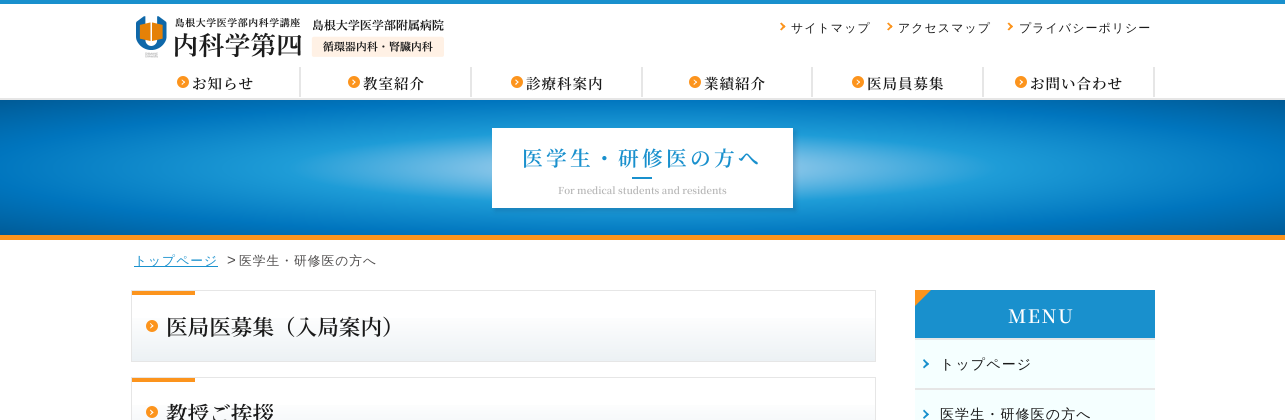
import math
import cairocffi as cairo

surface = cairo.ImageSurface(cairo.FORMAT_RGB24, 1285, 420)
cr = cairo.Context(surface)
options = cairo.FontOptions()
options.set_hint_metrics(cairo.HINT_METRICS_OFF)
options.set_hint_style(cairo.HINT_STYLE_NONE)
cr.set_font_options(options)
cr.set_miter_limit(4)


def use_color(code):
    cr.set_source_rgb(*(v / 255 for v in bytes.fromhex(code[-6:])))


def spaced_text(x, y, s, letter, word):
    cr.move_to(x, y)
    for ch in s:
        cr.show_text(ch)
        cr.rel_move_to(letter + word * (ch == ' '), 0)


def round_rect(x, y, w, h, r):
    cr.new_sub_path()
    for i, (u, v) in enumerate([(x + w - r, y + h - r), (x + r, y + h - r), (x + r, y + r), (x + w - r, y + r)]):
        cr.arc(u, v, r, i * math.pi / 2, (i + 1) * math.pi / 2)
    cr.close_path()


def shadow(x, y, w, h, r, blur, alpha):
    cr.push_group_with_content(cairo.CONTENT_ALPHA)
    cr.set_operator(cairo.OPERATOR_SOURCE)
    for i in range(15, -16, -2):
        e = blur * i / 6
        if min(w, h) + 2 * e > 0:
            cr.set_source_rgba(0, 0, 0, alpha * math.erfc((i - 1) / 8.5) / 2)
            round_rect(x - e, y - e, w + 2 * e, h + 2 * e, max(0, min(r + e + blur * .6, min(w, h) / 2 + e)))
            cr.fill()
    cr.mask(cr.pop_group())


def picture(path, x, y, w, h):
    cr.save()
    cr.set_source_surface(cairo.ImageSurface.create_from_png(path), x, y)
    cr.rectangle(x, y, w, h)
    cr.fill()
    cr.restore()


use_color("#ffffff")
cr.paint()
use_color("#1990cd")
cr.rectangle(0, 0, 1285, 4)
cr.fill()
use_color("#e6e6e6")
cr.rectangle(0, 98, 1285, 2)
cr.fill()
picture("img1.png", 136, 16, 308, 42)
use_color("#fc941d")
cr.new_path()
cr.move_to(781.5, 22.5)
cr.line_to(785.5, 26.5)
cr.line_to(784, 28)
cr.line_to(780, 23.5)
cr.close_path()
cr.fill()
cr.new_path()
cr.move_to(784, 25)
cr.line_to(785.5, 26.5)
cr.line_to(781.5, 30.5)
cr.line_to(780, 29.5)
cr.close_path()
cr.fill()
cr.select_font_face("WenQuanYi Zen Hei Medium")
cr.set_font_size(12)
use_color("#1a1a1a")
spaced_text(791, 32, "サイトマップ", 1, 0)
use_color("#fc941d")
cr.new_path()
cr.move_to(888.5, 22.5)
cr.line_to(892.5, 26.5)
cr.line_to(891.5, 28)
cr.line_to(887, 23.5)
cr.close_path()
cr.fill()
cr.new_path()
cr.move_to(891.5, 25)
cr.line_to(892.5, 26.5)
cr.line_to(888.5, 30.5)
cr.line_to(887, 29.5)
cr.close_path()
cr.fill()
use_color("#1a1a1a")
spaced_text(898, 32, "アクセスマップ", 1, 0)
use_color("#fc941d")
cr.new_path()
cr.move_to(1009, 22.5)
cr.line_to(1013, 26.5)
cr.line_to(1011.5, 28)
cr.line_to(1007.5, 23.5)
cr.close_path()
cr.fill()
cr.new_path()
cr.move_to(1011.5, 25)
cr.line_to(1013, 26.5)
cr.line_to(1009, 30.5)
cr.line_to(1007.5, 29.5)
cr.close_path()
cr.fill()
use_color("#1a1a1a")
spaced_text(1019, 32, "プライバシーポリシー", 1, 0)
use_color("#fc941d")
cr.new_path()
cr.arc(183, 82, 6, 0, 2 * math.pi)
cr.fill()
cr.select_font_face("Noto Serif JP ExtraLight")
cr.set_font_size(14.5)
use_color("#1a1a1a")
spaced_text(192, 89, "お知らせ", 1, 0)
use_color("#ffffff")
cr.new_path()
cr.move_to(182, 79.5)
cr.line_to(185, 82)
cr.line_to(184.5, 83)
cr.line_to(181.5, 80)
cr.close_path()
cr.fill()
cr.new_path()
cr.move_to(184.5, 81.5)
cr.line_to(185, 82)
cr.line_to(182, 85)
cr.line_to(181.5, 84)
cr.close_path()
cr.fill()
use_color("#e6e6e6")
cr.rectangle(299, 67, 2, 30)
cr.fill()
use_color("#fc941d")
cr.arc(354, 82, 6, 0, 2 * math.pi)
cr.fill()
use_color("#1a1a1a")
spaced_text(363, 89, "教室紹介", 1, 0)
use_color("#ffffff")
cr.new_path()
cr.move_to(353, 79.5)
cr.line_to(355.5, 82)
cr.line_to(355, 83)
cr.line_to(352, 80)
cr.close_path()
cr.fill()
cr.new_path()
cr.move_to(355, 81.5)
cr.line_to(355.5, 82)
cr.line_to(353, 85)
cr.line_to(352, 84)
cr.close_path()
cr.fill()
use_color("#e6e6e6")
cr.rectangle(470, 67, 2, 30)
cr.fill()
use_color("#fc941d")
cr.arc(517, 82, 6, 0, 2 * math.pi)
cr.fill()
use_color("#1a1a1a")
spaced_text(526, 89, "診療科案内", 1, 0)
use_color("#ffffff")
cr.new_path()
cr.move_to(516, 79.5)
cr.line_to(518.5, 82)
cr.line_to(518, 83)
cr.line_to(515, 80)
cr.close_path()
cr.fill()
cr.new_path()
cr.move_to(518, 81.5)
cr.line_to(518.5, 82)
cr.line_to(516, 85)
cr.line_to(515, 84)
cr.close_path()
cr.fill()
use_color("#e6e6e6")
cr.rectangle(641, 67, 2, 30)
cr.fill()
use_color("#fc941d")
cr.arc(695, 82, 6, 0, 2 * math.pi)
cr.fill()
use_color("#1a1a1a")
spaced_text(704, 89, "業績紹介", 1, 0)
use_color("#ffffff")
cr.new_path()
cr.move_to(694, 79.5)
cr.line_to(697, 82)
cr.line_to(696.5, 83)
cr.line_to(693.5, 80)
cr.close_path()
cr.fill()
cr.new_path()
cr.move_to(696.5, 81.5)
cr.line_to(697, 82)
cr.line_to(694, 85)
cr.line_to(693.5, 84)
cr.close_path()
cr.fill()
use_color("#e6e6e6")
cr.rectangle(811, 67, 2, 30)
cr.fill()
use_color("#fc941d")
cr.arc(858, 82, 6, 0, 2 * math.pi)
cr.fill()
use_color("#1a1a1a")
spaced_text(867, 89, "医局員募集", 1, 0)
use_color("#ffffff")
cr.new_path()
cr.move_to(857, 79.5)
cr.line_to(860, 82)
cr.line_to(859.5, 83)
cr.line_to(856.5, 80)
cr.close_path()
cr.fill()
cr.new_path()
cr.move_to(859.5, 81.5)
cr.line_to(860, 82)
cr.line_to(857, 85)
cr.line_to(856.5, 84)
cr.close_path()
cr.fill()
use_color("#e6e6e6")
cr.rectangle(982, 67, 2, 30)
cr.fill()
use_color("#fc941d")
cr.arc(1021, 82, 6, 0, 2 * math.pi)
cr.fill()
use_color("#1a1a1a")
spaced_text(1030, 89, "お問い合わせ", 1, 0)
use_color("#ffffff")
cr.new_path()
cr.move_to(1020, 79.5)
cr.line_to(1023, 82)
cr.line_to(1022, 83)
cr.line_to(1019.5, 80)
cr.close_path()
cr.fill()
cr.new_path()
cr.move_to(1022, 81.5)
cr.line_to(1023, 82)
cr.line_to(1020, 85)
cr.line_to(1019.5, 84)
cr.close_path()
cr.fill()
use_color("#e6e6e6")
cr.rectangle(1153, 67, 2, 30)
cr.fill()
gradient = cairo.RadialGradient(0, 0, 0, 0, 0, 1)
gradient.set_matrix(cairo.Matrix(1 / 909, 0, 0, 1 / 95, -1 * 643 / 909, -1 * 168 / 95))
gradient.add_color_stop_rgba(0, 0.8, 0.878, 0.957, 1)
gradient.add_color_stop_rgba(0.39, 0.118, 0.612, 0.843, 1)
gradient.add_color_stop_rgba(0.72, 0, 0.459, 0.745, 1)
gradient.add_color_stop_rgba(1, 0, 0.357, 0.592, 1)
cr.set_source(gradient)
cr.rectangle(0, 100, 1285, 135)
cr.fill()
use_color("#fc941d")
cr.rectangle(0, 235, 1285, 5)
cr.fill()
use_color("#1c2e56")
shadow(495, 131, 301, 80, 0, 2.5, 0.2)
use_color("#ffffff")
cr.rectangle(492, 128, 301, 80)
cr.fill()
cr.set_font_size(20.75)
use_color("#1990cd")
spaced_text(522, 166, "医学生・研修医の方へ", 3.25, 0)
cr.rectangle(632, 177, 20, 2)
cr.fill()
cr.set_font_size(9.6)
use_color("#b3b3b3")
cr.move_to(558, 194)
cr.show_text("For medical students and residents")
use_color("#1990cd")
cr.rectangle(134, 266, 84, 1)
cr.fill()
cr.select_font_face("WenQuanYi Zen Hei Medium")
cr.set_font_size(12.75)
spaced_text(134, 265, "トップページ", 1, 0)
cr.select_font_face("Liberation Sans")
cr.set_font_size(15)
use_color("#4f4d4d")
spaced_text(227, 265, ">", 1, 0)
cr.select_font_face("WenQuanYi Zen Hei Medium")
cr.set_font_size(12.75)
spaced_text(239, 265, "医学生・研修医の方へ", 1, 0)
gradient = cairo.LinearGradient(504, 291, 504, 361)
gradient.add_color_stop_rgba(0.3, 1, 1, 1, 1)
gradient.add_color_stop_rgba(1, 0.925, 0.945, 0.957, 1)
cr.set_source(gradient)
cr.rectangle(132, 318, 743, 43)
cr.fill()
cr.rectangle(131.5, 290.5, 744, 71)
use_color("#e6e6e6")
cr.set_line_width(1)
cr.stroke()
use_color("#fc941d")
cr.rectangle(132, 291, 63, 4)
cr.fill()
cr.arc(152, 326, 6, 0, 2 * math.pi)
cr.fill()
cr.select_font_face("Noto Serif JP ExtraLight")
cr.set_font_size(21.6)
use_color("#1a1a1a")
cr.move_to(166, 335)
cr.show_text("医局医募集（入局案内）")
use_color("#ffffff")
cr.new_path()
cr.move_to(150.5, 323)
cr.line_to(153.5, 326)
cr.line_to(152.5, 326.5)
cr.line_to(150, 323.5)
cr.close_path()
cr.fill()
cr.new_path()
cr.move_to(152.5, 325)
cr.line_to(153.5, 326)
cr.line_to(150.5, 328.5)
cr.line_to(150, 328)
cr.close_path()
cr.fill()
gradient = cairo.LinearGradient(504, 378, 504, 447)
gradient.add_color_stop_rgba(0.3, 1, 1, 1, 1)
gradient.add_color_stop_rgba(1, 0.925, 0.945, 0.957, 1)
cr.set_source(gradient)
cr.rectangle(132, 405, 743, 15)
cr.fill()
cr.rectangle(131.5, 377.5, 744, 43)
use_color("#e6e6e6")
cr.stroke()
use_color("#fc941d")
cr.rectangle(132, 378, 63, 4)
cr.fill()
cr.arc(152, 412, 6, 0, 2 * math.pi)
cr.fill()
use_color("#1a1a1a")
cr.move_to(166, 422)
cr.show_text("教授ご挨拶")
use_color("#ffffff")
cr.new_path()
cr.move_to(150.5, 409.5)
cr.line_to(153.5, 412.5)
cr.line_to(152.5, 413)
cr.line_to(150, 410.5)
cr.close_path()
cr.fill()
cr.new_path()
cr.move_to(152.5, 411.5)
cr.line_to(153.5, 412.5)
cr.line_to(150.5, 415)
cr.line_to(150, 414.5)
cr.close_path()
cr.fill()
use_color("#1990cd")
cr.rectangle(915, 290, 240, 48)
cr.fill()
use_color("#e6e6e6")
cr.rectangle(915, 338, 240, 2)
cr.fill()
use_color("#fc941d")
cr.new_path()
cr.move_to(915, 290)
cr.line_to(931, 290)
cr.line_to(915, 306)
cr.close_path()
cr.fill()
cr.set_font_size(18.5)
use_color("#ffffff")
spaced_text(1008, 323, "MENU", 1.5, 0)
use_color("#f5ffff")
cr.rectangle(915, 340, 240, 48)
cr.fill()
use_color("#e6e6e6")
cr.rectangle(915, 388, 240, 2)
cr.fill()
use_color("#1990cd")
cr.new_path()
cr.move_to(924, 359)
cr.line_to(929, 364)
cr.line_to(927.5, 365.5)
cr.line_to(923, 360.5)
cr.close_path()
cr.fill()
cr.new_path()
cr.move_to(927.5, 362.5)
cr.line_to(929, 364)
cr.line_to(924, 368.5)
cr.line_to(923, 367)
cr.close_path()
cr.fill()
cr.select_font_face("WenQuanYi Zen Hei Medium")
cr.set_font_size(14)
use_color("#1a1a1a")
spaced_text(940, 369, "トップページ", 1.1, 0)
use_color("#f5ffff")
cr.rectangle(915, 390, 240, 30)
cr.fill()
use_color("#1990cd")
cr.new_path()
cr.move_to(924, 409.5)
cr.line_to(929, 414.5)
cr.line_to(927.5, 415.5)
cr.line_to(923, 411)
cr.close_path()
cr.fill()
cr.new_path()
cr.move_to(927.5, 413)
cr.line_to(929, 414.5)
cr.line_to(924, 419)
cr.line_to(923, 417.5)
cr.close_path()
cr.fill()
use_color("#1a1a1a")
spaced_text(940, 419, "医学生・研修医の方へ", 1.1, 0)
surface.write_to_png("result.png")
